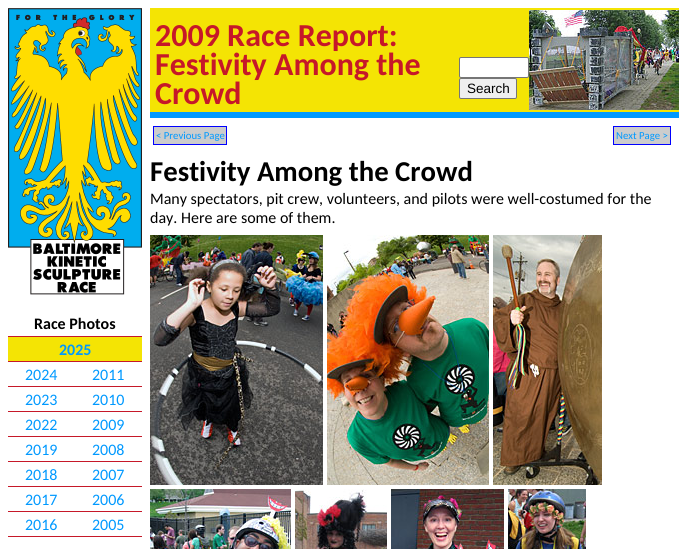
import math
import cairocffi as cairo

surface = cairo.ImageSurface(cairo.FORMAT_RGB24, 687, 549)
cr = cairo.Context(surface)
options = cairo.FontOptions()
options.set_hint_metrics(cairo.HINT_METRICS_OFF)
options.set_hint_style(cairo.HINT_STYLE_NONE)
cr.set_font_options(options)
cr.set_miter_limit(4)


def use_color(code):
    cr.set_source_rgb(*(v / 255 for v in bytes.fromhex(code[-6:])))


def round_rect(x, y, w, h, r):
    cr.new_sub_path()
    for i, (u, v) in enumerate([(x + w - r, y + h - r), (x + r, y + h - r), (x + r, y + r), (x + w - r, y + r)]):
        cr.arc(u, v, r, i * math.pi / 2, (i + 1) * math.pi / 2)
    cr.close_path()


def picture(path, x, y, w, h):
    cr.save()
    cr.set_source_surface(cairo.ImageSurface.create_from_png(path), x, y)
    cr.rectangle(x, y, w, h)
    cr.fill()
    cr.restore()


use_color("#ffffff")
cr.paint()
use_color("#f4e404")
cr.rectangle(150, 8, 529, 104)
cr.fill()
use_color("#0099ff")
cr.rectangle(150, 112, 529, 6)
cr.fill()
cr.select_font_face("Carlito", cairo.FONT_SLANT_NORMAL, cairo.FONT_WEIGHT_BOLD)
cr.set_font_size(32)
use_color("#c61829")
cr.move_to(155, 46)
cr.show_text("2009 Race Report:")
cr.move_to(155, 75)
cr.show_text("Festivity Among the")
cr.move_to(155, 104)
cr.show_text("Crowd")
use_color("#ffffff")
round_rect(459.5, 57.5, 69, 20, 1.5)
cr.fill_preserve()
use_color("#767676")
cr.set_line_width(1)
cr.stroke()
use_color("#efefef")
round_rect(459.5, 78.5, 57, 20, 1.5)
cr.fill_preserve()
use_color("#767676")
cr.stroke()
cr.select_font_face("Liberation Sans")
cr.set_font_size(13.5)
use_color("#000000")
cr.move_to(467, 93)
cr.show_text("Search")
picture("img1.png", 529, 10, 150, 100)
picture("img2.png", 8, 8, 134, 287)
cr.select_font_face("Carlito", cairo.FONT_SLANT_NORMAL, cairo.FONT_WEIGHT_BOLD)
cr.set_font_size(16)
cr.move_to(34, 329)
cr.show_text("Race Photos")
use_color("#c61829")
cr.rectangle(8, 336, 134, 1)
cr.fill()
use_color("#f4e404")
cr.rectangle(8, 337, 134, 24)
cr.fill()
use_color("#0099ff")
cr.move_to(59, 355)
cr.show_text("2025")
use_color("#c61829")
cr.rectangle(8, 361, 134, 1)
cr.fill()
cr.select_font_face("Carlito")
use_color("#0099ff")
cr.move_to(25, 380)
cr.show_text("2024")
cr.move_to(92, 380)
cr.show_text("2011")
use_color("#c61829")
cr.rectangle(8, 386, 134, 1)
cr.fill()
use_color("#0099ff")
cr.move_to(25, 405)
cr.show_text("2023")
cr.move_to(92, 405)
cr.show_text("2010")
use_color("#c61829")
cr.rectangle(8, 411, 134, 1)
cr.fill()
use_color("#0099ff")
cr.move_to(25, 430)
cr.show_text("2022")
cr.move_to(92, 430)
cr.show_text("2009")
use_color("#c61829")
cr.rectangle(8, 436, 134, 1)
cr.fill()
use_color("#0099ff")
cr.move_to(25, 455)
cr.show_text("2019")
cr.move_to(92, 455)
cr.show_text("2008")
use_color("#c61829")
cr.rectangle(8, 461, 134, 1)
cr.fill()
use_color("#0099ff")
cr.move_to(25, 480)
cr.show_text("2018")
cr.move_to(92, 480)
cr.show_text("2007")
use_color("#c61829")
cr.rectangle(8, 486, 134, 1)
cr.fill()
use_color("#0099ff")
cr.move_to(25, 505)
cr.show_text("2017")
cr.move_to(92, 505)
cr.show_text("2006")
use_color("#c61829")
cr.rectangle(8, 511, 134, 1)
cr.fill()
use_color("#0099ff")
cr.move_to(25, 530)
cr.show_text("2016")
cr.move_to(92, 530)
cr.show_text("2005")
use_color("#c61829")
cr.rectangle(8, 536, 134, 1)
cr.fill()
use_color("#cccccc")
cr.rectangle(153.5, 126.5, 73, 18)
cr.fill_preserve()
use_color("#0000ff")
cr.stroke()
cr.set_font_size(10.75)
use_color("#0099ff")
cr.move_to(156, 139)
cr.show_text("< Previous Page")
use_color("#cccccc")
cr.rectangle(613.5, 126.5, 57, 18)
cr.fill_preserve()
use_color("#0000ff")
cr.stroke()
use_color("#0099ff")
cr.move_to(616, 139)
cr.show_text("Next Page >")
cr.select_font_face("Carlito", cairo.FONT_SLANT_NORMAL, cairo.FONT_WEIGHT_BOLD)
cr.set_font_size(28.75)
use_color("#000000")
cr.move_to(150, 181)
cr.show_text("Festivity Among the Crowd")
cr.select_font_face("Carlito")
cr.set_font_size(16)
cr.move_to(150, 204)
cr.show_text("Many spectators, pit crew, volunteers, and pilots were well-costumed for the")
cr.move_to(150, 223)
cr.show_text("day. Here are some of them.")
picture("img3.png", 150, 235, 173, 250)
picture("img4.png", 327, 235, 162, 250)
picture("img5.png", 493, 235, 109, 250)
picture("img6.png", 150, 489, 141, 60)
picture("img7.png", 295, 489, 92, 60)
picture("img8.png", 391, 489, 113, 60)
picture("img9.png", 508, 489, 78, 60)
surface.write_to_png("result.png")
